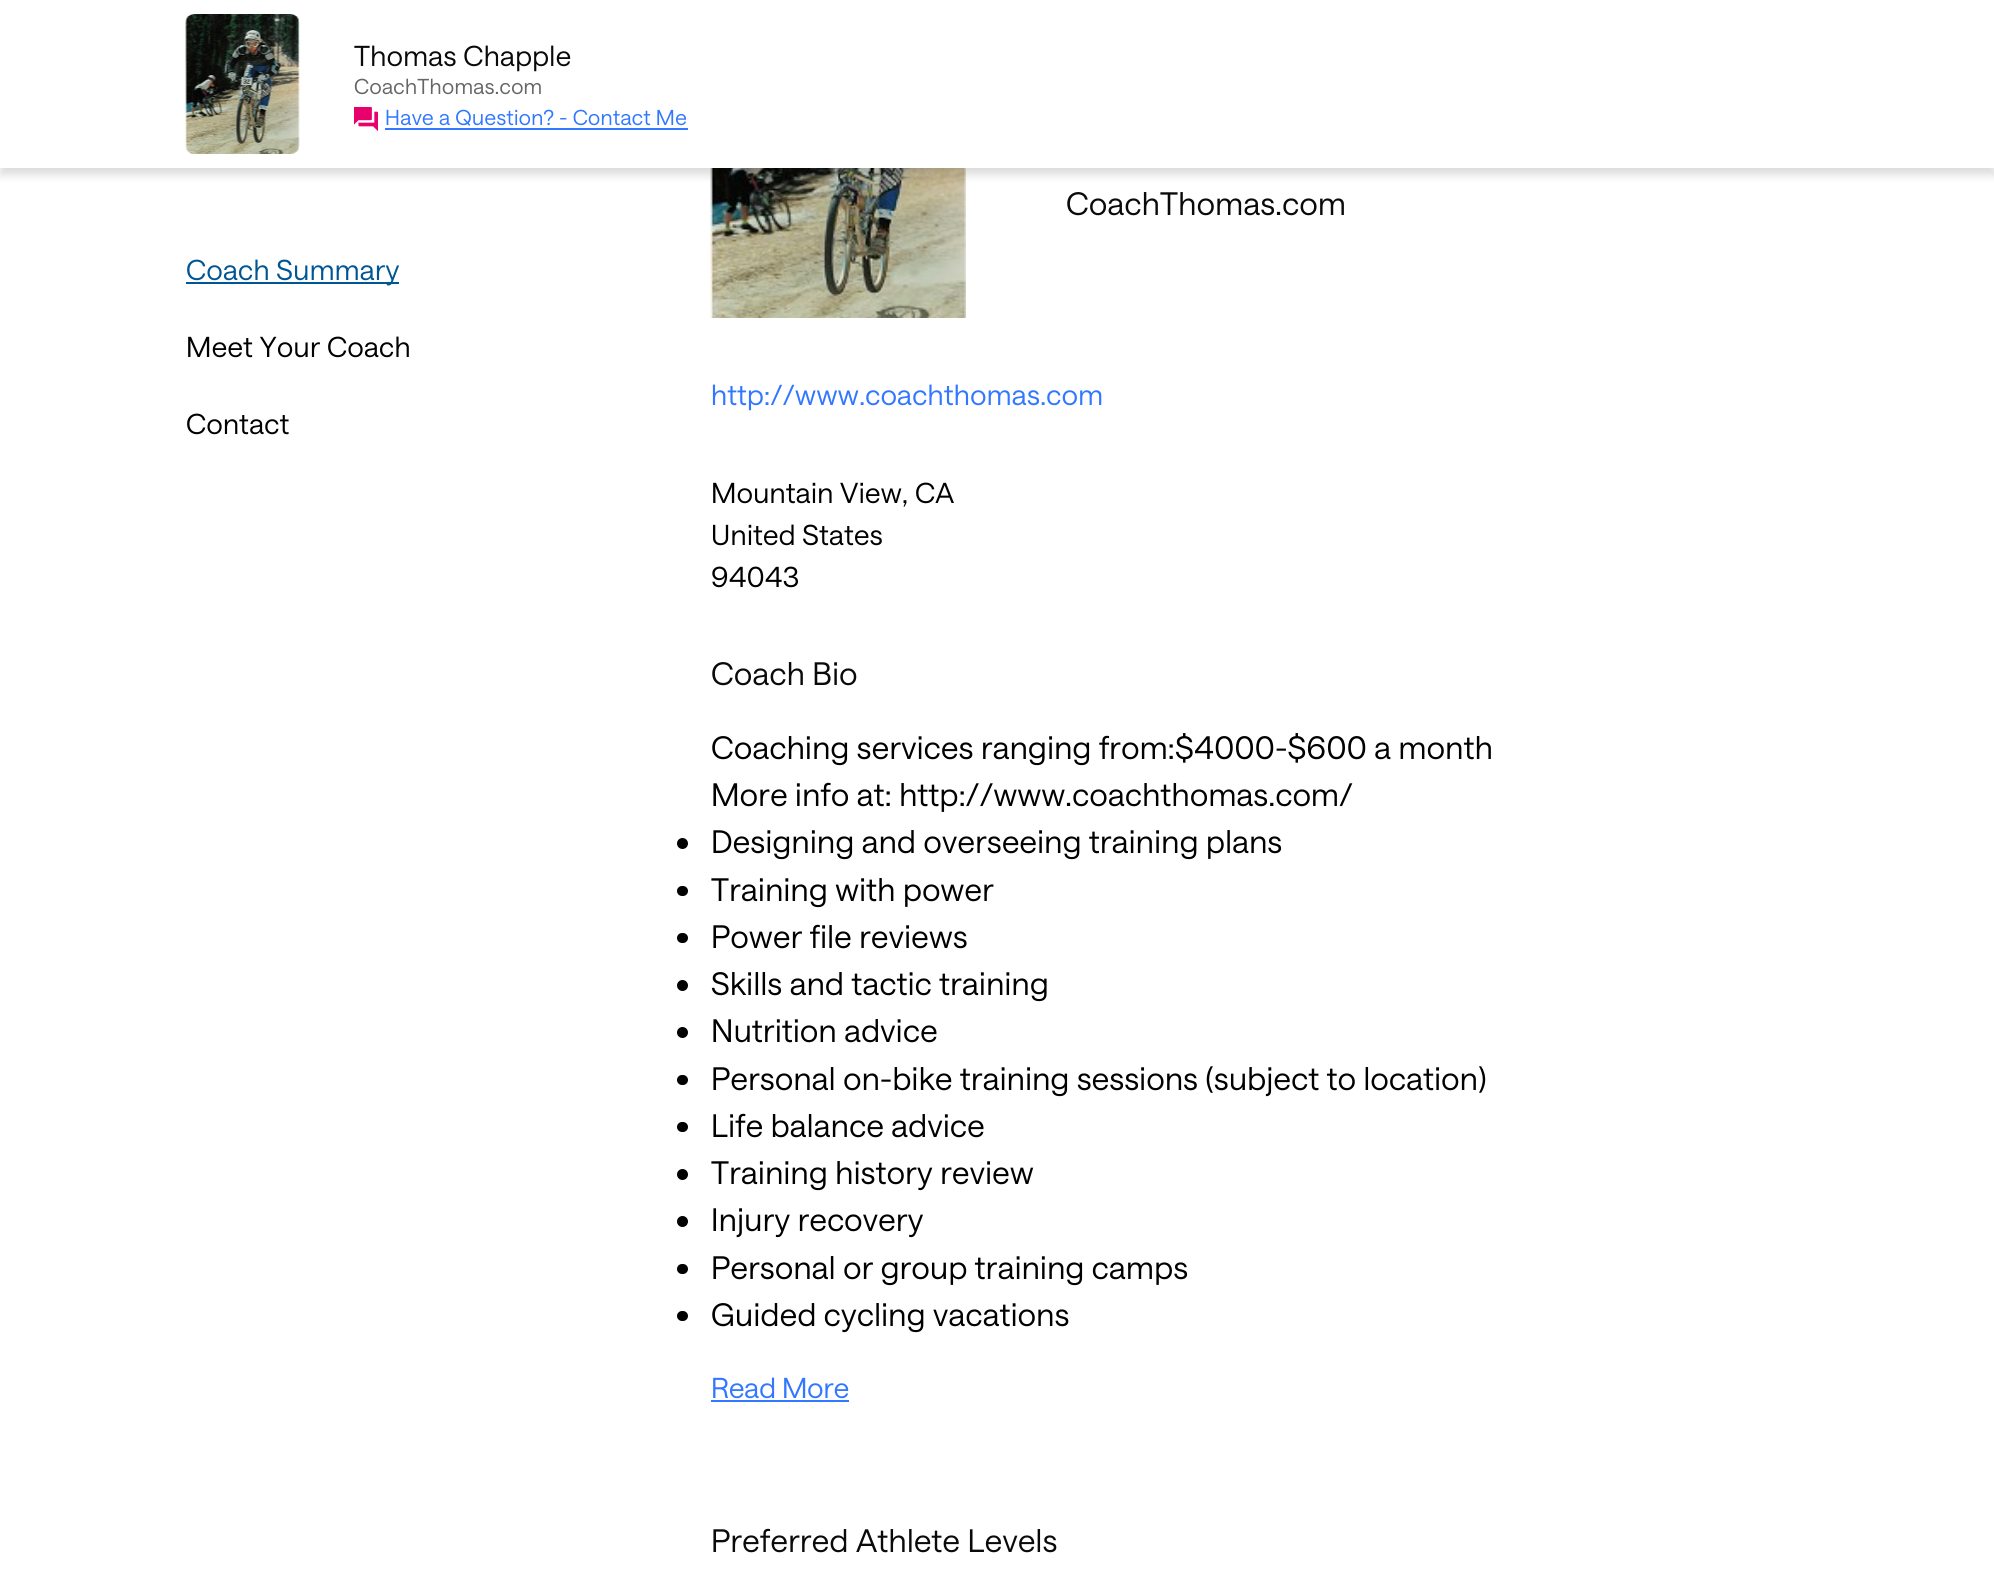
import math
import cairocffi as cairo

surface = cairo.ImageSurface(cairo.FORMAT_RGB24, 1994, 1591)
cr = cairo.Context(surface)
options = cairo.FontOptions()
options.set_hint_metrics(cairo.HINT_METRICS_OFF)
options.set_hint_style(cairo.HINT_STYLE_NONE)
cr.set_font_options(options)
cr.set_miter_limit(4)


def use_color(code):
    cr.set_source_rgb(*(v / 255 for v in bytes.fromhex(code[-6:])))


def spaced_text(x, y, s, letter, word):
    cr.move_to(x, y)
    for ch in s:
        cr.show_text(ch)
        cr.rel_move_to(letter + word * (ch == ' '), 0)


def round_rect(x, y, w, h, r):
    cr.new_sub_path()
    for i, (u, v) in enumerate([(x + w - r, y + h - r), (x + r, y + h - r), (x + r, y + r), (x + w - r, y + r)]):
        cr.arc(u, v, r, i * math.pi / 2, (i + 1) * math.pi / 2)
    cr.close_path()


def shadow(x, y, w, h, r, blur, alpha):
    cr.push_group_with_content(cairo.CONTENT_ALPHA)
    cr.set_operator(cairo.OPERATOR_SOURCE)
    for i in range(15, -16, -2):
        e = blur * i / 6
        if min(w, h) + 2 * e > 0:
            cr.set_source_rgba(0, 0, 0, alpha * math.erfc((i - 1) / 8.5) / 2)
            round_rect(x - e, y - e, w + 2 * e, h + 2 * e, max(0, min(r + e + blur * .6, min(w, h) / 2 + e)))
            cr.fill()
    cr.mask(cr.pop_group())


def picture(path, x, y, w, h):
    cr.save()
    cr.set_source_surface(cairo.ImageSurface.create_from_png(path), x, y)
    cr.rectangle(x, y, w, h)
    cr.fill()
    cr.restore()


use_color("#ffffff")
cr.paint()
picture("img3.png", 710, 168, 256, 150)
use_color("#000000")
shadow(0, 7, 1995, 168, 0, 4.5, 0.14)
use_color("#ffffff")
cr.rectangle(0, 0, 1994, 168)
cr.fill()
picture("img1.png", 185, 14, 115, 140)
cr.select_font_face("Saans")
cr.set_font_size(28)
use_color("#0a0a0a")
spaced_text(354, 66, "Thomas Chapple", 0.35, 0)
cr.set_font_size(21)
use_color("#666666")
spaced_text(354, 94, "CoachThomas.com", 0.35, 0)
picture("img2.png", 354, 107, 24, 24)
use_color("#3177ff")
spaced_text(385, 125, "Have a Question? - Contact Me", 0.35, 0)
cr.rectangle(385, 128, 303, 2)
cr.fill()
use_color("#005695")
cr.rectangle(186, 282, 213, 2)
cr.fill()
cr.set_font_size(28)
spaced_text(186, 280, "Coach Summary", 0.35, 0)
use_color("#000000")
spaced_text(186, 357, "Meet Your Coach", 0.35, 0)
spaced_text(186, 434, "Contact", 0.35, 0)
cr.set_font_size(31.5)
use_color("#0a0a0a")
spaced_text(1066, 215, "CoachThomas.com", 0.35, 0)
cr.set_font_size(28)
use_color("#3177ff")
spaced_text(711, 405, "http://www.coachthomas.com", 0.35, 0)
use_color("#000000")
spaced_text(711, 503, "Mountain View, CA", 0.35, 0)
spaced_text(711, 545, "United States", 0.35, 0)
spaced_text(711, 587, "94043", 0.35, 0)
cr.set_font_size(31.5)
use_color("#0a0a0a")
spaced_text(711, 685, "Coach Bio", 0.35, 0)
use_color("#000000")
spaced_text(711, 759, "Coaching services ranging from:$4000-$600 a month", 0.35, 0)
spaced_text(711, 806, "More info at: http://www.coachthomas.com/", 0.35, 0)
cr.new_path()
cr.arc(682.5, 843.5, 5.5, 0, 2 * math.pi)
cr.fill()
spaced_text(711, 853, "Designing and overseeing training plans", 0.35, 0)
round_rect(677, 886, 11, 10, 5)
cr.fill()
spaced_text(711, 901, "Training with power", 0.35, 0)
round_rect(677, 933, 11, 10, 5)
cr.fill()
spaced_text(711, 948, "Power file reviews", 0.35, 0)
cr.new_path()
cr.arc(682.5, 985.5, 5.5, 0, 2 * math.pi)
cr.fill()
spaced_text(711, 995, "Skills and tactic training", 0.35, 0)
cr.new_path()
cr.arc(682.5, 1032.5, 5.5, 0, 2 * math.pi)
cr.fill()
spaced_text(711, 1042, "Nutrition advice", 0.35, 0)
round_rect(677, 1075, 11, 10, 5)
cr.fill()
spaced_text(711, 1090, "Personal on-bike training sessions (subject to location)", 0.35, 0)
round_rect(677, 1122, 11, 10, 5)
cr.fill()
spaced_text(711, 1137, "Life balance advice", 0.35, 0)
cr.new_path()
cr.arc(682.5, 1174.5, 5.5, 0, 2 * math.pi)
cr.fill()
spaced_text(711, 1184, "Training history review", 0.35, 0)
cr.new_path()
cr.arc(682.5, 1221.5, 5.5, 0, 2 * math.pi)
cr.fill()
spaced_text(711, 1231, "Injury recovery", 0.35, 0)
round_rect(677, 1264, 11, 10, 5)
cr.fill()
spaced_text(711, 1279, "Personal or group training camps", 0.35, 0)
round_rect(677, 1311, 11, 10, 5)
cr.fill()
spaced_text(711, 1326, "Guided cycling vacations", 0.35, 0)
cr.set_font_size(28)
use_color("#3177ff")
cr.move_to(711, 1398)
cr.show_text("Read More")
cr.rectangle(711, 1400, 138, 2)
cr.fill()
cr.set_font_size(31.5)
use_color("#0a0a0a")
spaced_text(711, 1552, "Preferred Athlete Levels", 0.35, 0)
surface.write_to_png("result.png")
